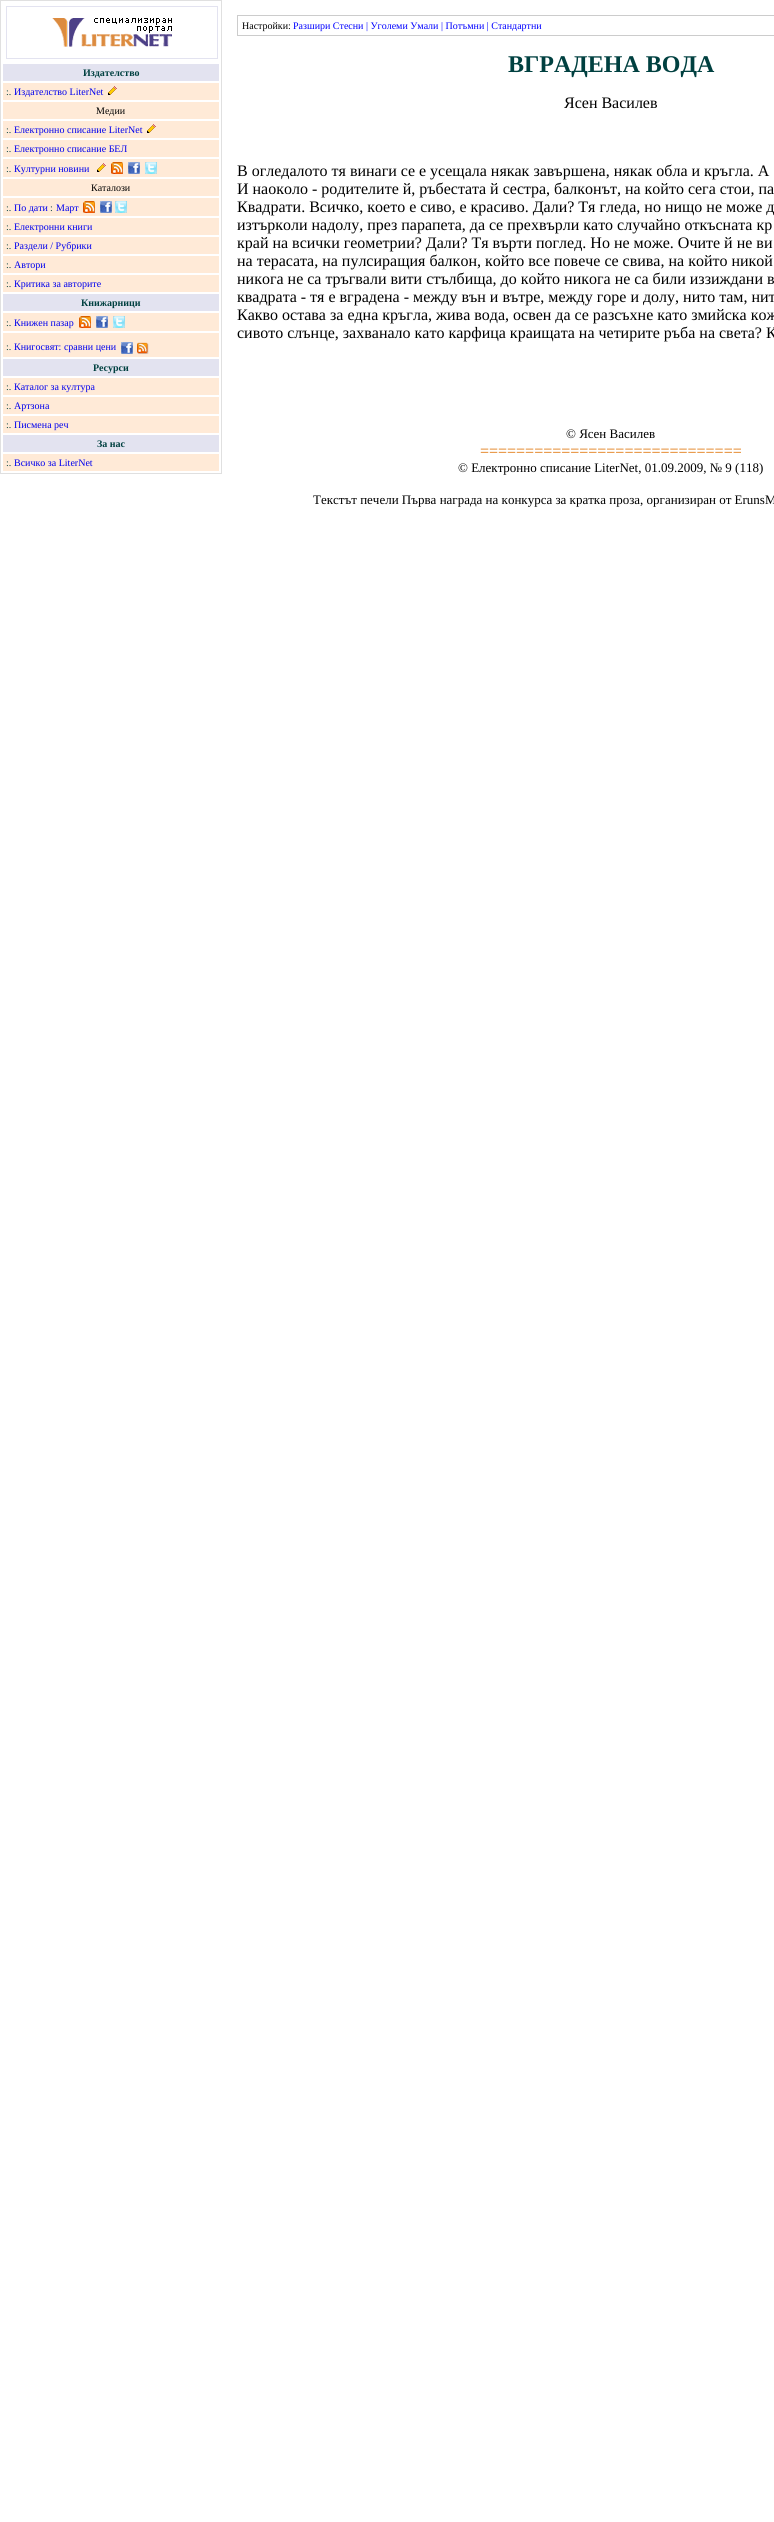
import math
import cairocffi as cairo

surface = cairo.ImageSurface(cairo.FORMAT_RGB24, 774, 2522)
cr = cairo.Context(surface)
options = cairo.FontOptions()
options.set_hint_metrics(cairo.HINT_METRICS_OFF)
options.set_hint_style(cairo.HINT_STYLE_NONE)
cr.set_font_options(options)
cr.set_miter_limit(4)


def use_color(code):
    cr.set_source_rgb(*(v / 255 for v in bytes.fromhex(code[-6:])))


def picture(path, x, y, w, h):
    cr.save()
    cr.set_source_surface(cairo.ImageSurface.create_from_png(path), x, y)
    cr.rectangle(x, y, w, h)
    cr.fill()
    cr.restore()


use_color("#ffffff")
cr.paint()
cr.rectangle(0.5, 0.5, 221, 473)
use_color("#e0e0e0")
cr.set_line_width(1)
cr.stroke()
cr.rectangle(6.5, 6.5, 211, 52)
use_color("#e3e3f0")
cr.stroke()
picture("img1.png", 52, 18, 120, 29)
cr.rectangle(3, 64, 216, 17)
cr.fill()
cr.select_font_face("Liberation Serif", cairo.FONT_SLANT_NORMAL, cairo.FONT_WEIGHT_BOLD)
cr.set_font_size(10)
use_color("#004040")
cr.move_to(83, 76)
cr.show_text("Издателство")
use_color("#ffead7")
cr.rectangle(3, 83, 216, 17)
cr.fill()
cr.select_font_face("Liberation Serif")
use_color("#004040")
cr.move_to(6, 95)
cr.show_text(":.")
use_color("#0000ee")
cr.move_to(14, 95)
cr.show_text("Издателство LiterNet")
picture("img2.png", 108, 86, 9, 9)
use_color("#ffead7")
cr.rectangle(3, 102, 216, 17)
cr.fill()
use_color("#000000")
cr.move_to(96, 114)
cr.show_text("Медии")
use_color("#ffead7")
cr.rectangle(3, 121, 216, 17)
cr.fill()
use_color("#004040")
cr.move_to(6, 133)
cr.show_text(":.")
use_color("#0000ee")
cr.move_to(14, 133)
cr.show_text("Електронно списание LiterNet")
picture("img2.png", 147, 124, 9, 9)
use_color("#ffead7")
cr.rectangle(3, 140, 216, 17)
cr.fill()
use_color("#004040")
cr.move_to(6, 152)
cr.show_text(":.")
use_color("#0000ee")
cr.move_to(14, 152)
cr.show_text("Електронно списание БЕЛ")
use_color("#ffead7")
cr.rectangle(3, 159, 216, 18)
cr.fill()
use_color("#004040")
cr.move_to(6, 172)
cr.show_text(":.")
use_color("#0000ee")
cr.move_to(14, 172)
cr.show_text("Културни новини")
picture("img2.png", 97, 163, 9, 9)
picture("img3.png", 111, 162, 12, 12)
picture("img4.png", 128, 162, 12, 12)
picture("img5.png", 145, 162, 12, 12)
use_color("#ffead7")
cr.rectangle(3, 179, 216, 17)
cr.fill()
use_color("#000000")
cr.move_to(91, 191)
cr.show_text("Каталози")
use_color("#ffead7")
cr.rectangle(3, 198, 216, 18)
cr.fill()
use_color("#004040")
cr.move_to(6, 211)
cr.show_text(":.")
use_color("#0000ee")
cr.move_to(14, 211)
cr.show_text("По дати")
use_color("#004040")
cr.move_to(50, 211)
cr.show_text(":")
use_color("#0000ee")
cr.move_to(56, 211)
cr.show_text("Март")
picture("img3.png", 83, 201, 12, 12)
picture("img4.png", 100, 201, 12, 12)
picture("img5.png", 115, 201, 12, 12)
use_color("#ffead7")
cr.rectangle(3, 218, 216, 17)
cr.fill()
use_color("#004040")
cr.move_to(6, 230)
cr.show_text(":.")
use_color("#0000ee")
cr.move_to(14, 230)
cr.show_text("Електронни книги")
use_color("#ffead7")
cr.rectangle(3, 237, 216, 17)
cr.fill()
use_color("#004040")
cr.move_to(6, 249)
cr.show_text(":.")
use_color("#0000ee")
cr.move_to(14, 249)
cr.show_text("Раздели / Рубрики")
use_color("#ffead7")
cr.rectangle(3, 256, 216, 17)
cr.fill()
use_color("#004040")
cr.move_to(6, 268)
cr.show_text(":.")
use_color("#0000ee")
cr.move_to(14, 268)
cr.show_text("Автори")
use_color("#ffead7")
cr.rectangle(3, 275, 216, 17)
cr.fill()
use_color("#004040")
cr.move_to(6, 287)
cr.show_text(":.")
use_color("#0000ee")
cr.move_to(14, 287)
cr.show_text("Критика за авторите")
use_color("#e3e3f0")
cr.rectangle(3, 294, 216, 17)
cr.fill()
cr.select_font_face("Liberation Serif", cairo.FONT_SLANT_NORMAL, cairo.FONT_WEIGHT_BOLD)
use_color("#004040")
cr.move_to(81, 306)
cr.show_text("Книжарници")
use_color("#ffead7")
cr.rectangle(3, 313, 216, 18)
cr.fill()
cr.select_font_face("Liberation Serif")
use_color("#004040")
cr.move_to(6, 326)
cr.show_text(":.")
use_color("#0000ee")
cr.move_to(14, 326)
cr.show_text("Книжен пазар")
picture("img3.png", 79, 316, 12, 12)
picture("img4.png", 96, 316, 12, 12)
picture("img6.png", 113, 316, 12, 12)
use_color("#ffead7")
cr.rectangle(3, 333, 216, 24)
cr.fill()
use_color("#004040")
cr.move_to(6, 350)
cr.show_text(":.")
use_color("#0000ee")
cr.move_to(14, 350)
cr.show_text("Книгосвят: сравни цени")
picture("img4.png", 121, 342, 12, 12)
picture("img7.png", 137, 342, 12, 12)
use_color("#e3e3f0")
cr.rectangle(3, 359, 216, 17)
cr.fill()
cr.select_font_face("Liberation Serif", cairo.FONT_SLANT_NORMAL, cairo.FONT_WEIGHT_BOLD)
use_color("#004040")
cr.move_to(93, 371)
cr.show_text("Ресурси")
use_color("#ffead7")
cr.rectangle(3, 378, 216, 17)
cr.fill()
cr.select_font_face("Liberation Serif")
use_color("#004040")
cr.move_to(6, 390)
cr.show_text(":.")
use_color("#0000ee")
cr.move_to(14, 390)
cr.show_text("Каталог за култура")
use_color("#ffead7")
cr.rectangle(3, 397, 216, 17)
cr.fill()
use_color("#004040")
cr.move_to(6, 409)
cr.show_text(":.")
use_color("#0000ee")
cr.move_to(14, 409)
cr.show_text("Артзона")
use_color("#ffead7")
cr.rectangle(3, 416, 216, 17)
cr.fill()
use_color("#004040")
cr.move_to(6, 428)
cr.show_text(":.")
use_color("#0000ee")
cr.move_to(14, 428)
cr.show_text("Писмена реч")
use_color("#e3e3f0")
cr.rectangle(3, 435, 216, 17)
cr.fill()
cr.select_font_face("Liberation Serif", cairo.FONT_SLANT_NORMAL, cairo.FONT_WEIGHT_BOLD)
use_color("#004040")
cr.move_to(97, 447)
cr.show_text("За нас")
use_color("#ffead7")
cr.rectangle(3, 454, 216, 17)
cr.fill()
cr.select_font_face("Liberation Serif")
use_color("#004040")
cr.move_to(6, 466)
cr.show_text(":.")
use_color("#0000ee")
cr.move_to(14, 466)
cr.show_text("Всичко за LiterNet")
cr.rectangle(237.5, 15.5, 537, 20)
use_color("#cccccc")
cr.stroke()
use_color("#000000")
cr.move_to(242, 29)
cr.show_text("Настройки:")
use_color("#0000ff")
cr.move_to(293, 29)
cr.show_text("Разшири Стесни | Уголеми Умали | Потъмни | Стандартни")
cr.select_font_face("Liberation Serif", cairo.FONT_SLANT_NORMAL, cairo.FONT_WEIGHT_BOLD)
cr.set_font_size(24)
use_color("#004040")
cr.move_to(508, 72)
cr.show_text("ВГРАДЕНА ВОДА")
cr.select_font_face("Liberation Serif")
cr.set_font_size(16)
use_color("#000000")
cr.move_to(564, 108)
cr.show_text("Ясен Василев")
cr.move_to(237, 176)
cr.show_text("В огледалото тя винаги се е усещала някак завършена, някак обла и кръгла. А")
cr.move_to(237, 194)
cr.show_text("И наоколо - родителите й, ръбестата й сестра, балконът, на който сега стои, па")
cr.move_to(237, 212)
cr.show_text("Квадрати. Всичко, което е сиво, е красиво. Дали? Тя гледа, но нищо не може д")
cr.move_to(237, 230)
cr.show_text("изтърколи надолу, през парапета, да се прехвърли като случайно откъсната кр")
cr.move_to(237, 248)
cr.show_text("край на всички геометрии? Дали? Тя върти поглед. Но не може. Очите й не ви")
cr.move_to(237, 266)
cr.show_text("на терасата, на пулсиращия балкон, който все повече се свива, на който никой")
cr.move_to(237, 284)
cr.show_text("никога не са тръгвали вити стълбища, до който никога не са били иззиждани в")
cr.move_to(237, 302)
cr.show_text("квадрата - тя е вградена - между вън и вътре, между горе и долу, нито там, нит")
cr.move_to(237, 320)
cr.show_text("Какво остава за една кръгла, жива вода, освен да се разсъхне като змийска кож")
cr.move_to(237, 338)
cr.show_text("сивото слънце, захванало като карфица краищата на четирите ръба на света? К")
cr.set_font_size(13)
cr.move_to(566, 438)
cr.show_text("© Ясен Василев")
cr.set_font_size(16)
use_color("#df7000")
cr.move_to(480, 456)
cr.show_text("=============================")
cr.set_font_size(13)
use_color("#000000")
cr.move_to(458, 472)
cr.show_text("© Електронно списание LiterNet, 01.09.2009, № 9 (118)")
cr.move_to(313, 504)
cr.show_text("Текстът печели Първа награда на конкурса за кратка проза, организиран от ErunsM")
surface.write_to_png("result.png")
